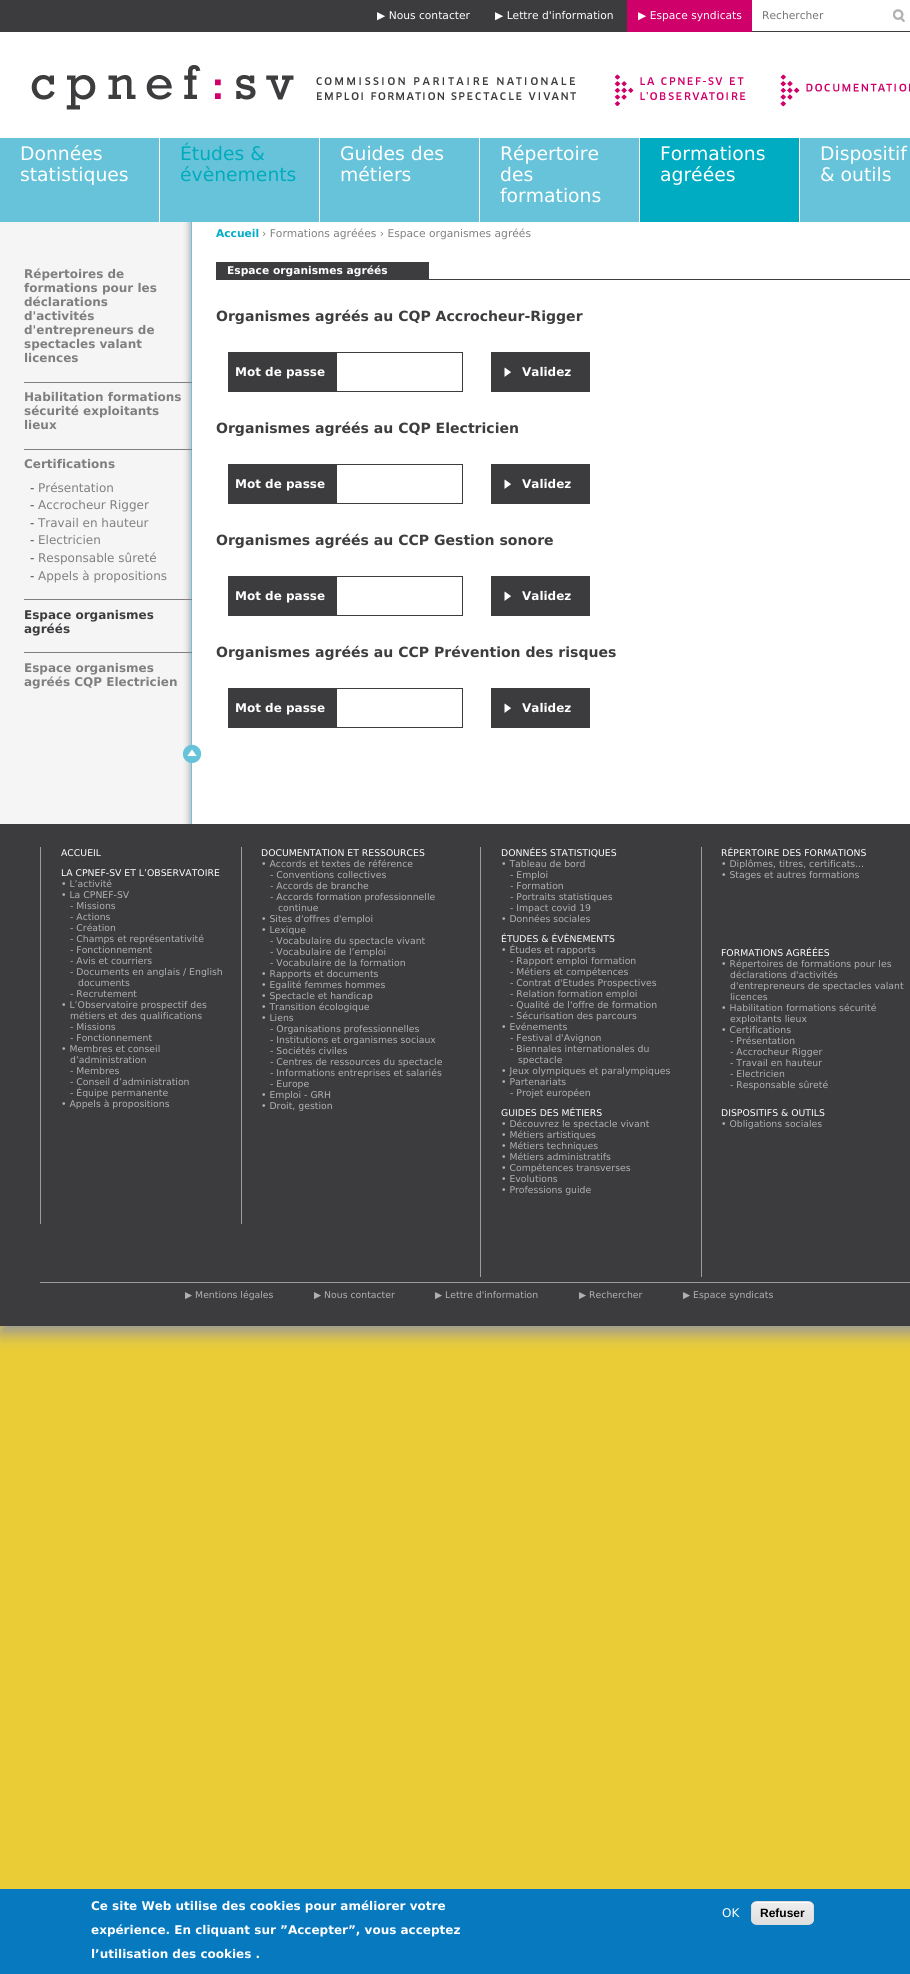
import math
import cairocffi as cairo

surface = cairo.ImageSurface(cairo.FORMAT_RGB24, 910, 1974)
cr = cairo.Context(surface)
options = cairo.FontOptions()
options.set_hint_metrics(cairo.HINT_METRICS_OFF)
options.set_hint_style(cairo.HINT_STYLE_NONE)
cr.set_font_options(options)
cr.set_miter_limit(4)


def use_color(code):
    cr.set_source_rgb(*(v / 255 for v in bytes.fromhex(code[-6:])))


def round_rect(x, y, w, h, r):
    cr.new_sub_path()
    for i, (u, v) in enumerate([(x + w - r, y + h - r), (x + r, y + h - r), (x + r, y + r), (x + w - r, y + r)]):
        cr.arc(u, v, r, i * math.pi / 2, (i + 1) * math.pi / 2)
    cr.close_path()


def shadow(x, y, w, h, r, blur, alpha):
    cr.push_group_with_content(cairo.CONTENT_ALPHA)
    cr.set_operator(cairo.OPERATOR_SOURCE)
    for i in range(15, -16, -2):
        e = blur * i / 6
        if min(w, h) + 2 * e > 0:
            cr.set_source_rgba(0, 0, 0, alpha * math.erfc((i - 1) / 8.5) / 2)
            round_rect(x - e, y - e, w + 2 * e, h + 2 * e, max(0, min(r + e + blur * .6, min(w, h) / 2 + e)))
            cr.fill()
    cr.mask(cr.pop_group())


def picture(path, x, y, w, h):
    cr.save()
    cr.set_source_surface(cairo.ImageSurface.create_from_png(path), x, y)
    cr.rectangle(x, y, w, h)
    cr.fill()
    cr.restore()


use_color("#eacc37")
cr.paint()
use_color("#999999")
shadow(0, 8, 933, 1326, 0, 7.5, 1)
use_color("#ffffff")
cr.rectangle(0, 32, 910, 792)
cr.fill()
use_color("#3c3c3e")
cr.rectangle(0, 0, 910, 32)
cr.fill()
cr.select_font_face("DejaVu Sans")
cr.set_font_size(10.7)
use_color("#ffffff")
cr.move_to(377, 19)
cr.show_text("▶ Nous contacter")
cr.move_to(495, 19)
cr.show_text("▶ Lettre d'information")
use_color("#d0006a")
cr.rectangle(627, 0, 125, 32)
cr.fill()
use_color("#ffffff")
cr.move_to(638, 19)
cr.show_text("▶ Espace syndicats")
cr.rectangle(752, 0, 158, 31)
cr.fill()
use_color("#757575")
cr.move_to(762, 19)
cr.show_text("Rechercher")
picture("img1.png", 893, 9, 13, 13)
picture("img2.png", 31, 65, 545, 45)
picture("img3.png", 614, 74, 132, 32)
picture("img4.png", 780, 74, 130, 33)
use_color("#66c3da")
cr.rectangle(0, 138, 159, 84)
cr.fill()
cr.set_font_size(18.75)
use_color("#ffffff")
cr.move_to(20, 160)
cr.show_text("Données")
cr.move_to(20, 181)
cr.show_text("statistiques")
use_color("#66c3da")
cr.rectangle(160, 138, 159, 84)
cr.fill()
use_color("#00acbc")
cr.move_to(180, 160)
cr.show_text("Études &")
cr.move_to(180, 181)
cr.show_text("évènements")
use_color("#66c3da")
cr.rectangle(320, 138, 159, 84)
cr.fill()
use_color("#ffffff")
cr.move_to(340, 160)
cr.show_text("Guides des")
cr.move_to(340, 181)
cr.show_text("métiers")
use_color("#66c3da")
cr.rectangle(480, 138, 159, 84)
cr.fill()
use_color("#ffffff")
cr.move_to(500, 160)
cr.show_text("Répertoire")
cr.move_to(500, 181)
cr.show_text("des")
cr.move_to(500, 202)
cr.show_text("formations")
use_color("#00acc2")
cr.rectangle(640, 138, 159, 84)
cr.fill()
use_color("#ffffff")
cr.move_to(660, 160)
cr.show_text("Formations")
cr.move_to(660, 181)
cr.show_text("agréées")
use_color("#66c3da")
cr.rectangle(800, 138, 110, 84)
cr.fill()
use_color("#ffffff")
cr.move_to(820, 160)
cr.show_text("Dispositif")
cr.move_to(820, 181)
cr.show_text("& outils")
picture("img5.png", 0, 222, 192, 602)
cr.select_font_face("DejaVu Sans", cairo.FONT_SLANT_NORMAL, cairo.FONT_WEIGHT_BOLD)
cr.set_font_size(12)
use_color("#7f7f7f")
cr.move_to(24, 278)
cr.show_text("Répertoires de")
cr.move_to(24, 292)
cr.show_text("formations pour les")
cr.move_to(24, 306)
cr.show_text("déclarations")
cr.move_to(24, 320)
cr.show_text("d'activités")
cr.move_to(24, 334)
cr.show_text("d'entrepreneurs de")
cr.move_to(24, 348)
cr.show_text("spectacles valant")
cr.move_to(24, 362)
cr.show_text("licences")
cr.rectangle(24, 382, 168, 1)
cr.fill()
cr.move_to(24, 401)
cr.show_text("Habilitation formations")
cr.move_to(24, 415)
cr.show_text("sécurité exploitants")
cr.move_to(24, 429)
cr.show_text("lieux")
cr.rectangle(24, 449, 168, 1)
cr.fill()
cr.move_to(24, 468)
cr.show_text("Certifications")
cr.select_font_face("DejaVu Sans")
use_color("#3d3d3f")
cr.move_to(30, 492)
cr.show_text("-")
use_color("#7f7f7f")
cr.move_to(38, 492)
cr.show_text("Présentation")
use_color("#3d3d3f")
cr.move_to(30, 509)
cr.show_text("-")
use_color("#7f7f7f")
cr.move_to(38, 509)
cr.show_text("Accrocheur Rigger")
use_color("#3d3d3f")
cr.move_to(30, 527)
cr.show_text("-")
use_color("#7f7f7f")
cr.move_to(38, 527)
cr.show_text("Travail en hauteur")
use_color("#3d3d3f")
cr.move_to(30, 544)
cr.show_text("-")
use_color("#7f7f7f")
cr.move_to(38, 544)
cr.show_text("Electricien")
use_color("#3d3d3f")
cr.move_to(30, 562)
cr.show_text("-")
use_color("#7f7f7f")
cr.move_to(38, 562)
cr.show_text("Responsable sûreté")
use_color("#3d3d3f")
cr.move_to(30, 580)
cr.show_text("-")
use_color("#7f7f7f")
cr.move_to(38, 580)
cr.show_text("Appels à propositions")
cr.rectangle(24, 599, 168, 1)
cr.fill()
cr.select_font_face("DejaVu Sans", cairo.FONT_SLANT_NORMAL, cairo.FONT_WEIGHT_BOLD)
use_color("#3d3d3f")
cr.move_to(24, 619)
cr.show_text("Espace organismes")
cr.move_to(24, 633)
cr.show_text("agréés")
use_color("#7f7f7f")
cr.rectangle(24, 652, 168, 1)
cr.fill()
cr.move_to(24, 672)
cr.show_text("Espace organismes")
cr.move_to(24, 686)
cr.show_text("agréés CQP Electricien")
cr.set_font_size(10.7)
use_color("#00adc4")
cr.move_to(216, 237)
cr.show_text("Accueil")
cr.select_font_face("DejaVu Sans")
use_color("#7f7f7f")
cr.move_to(262, 237)
cr.show_text("› Formations agréées › Espace organismes agréés")
use_color("#3c3c3e")
cr.rectangle(216, 279, 694, 1)
cr.fill()
use_color("#3d3d3f")
cr.rectangle(216, 262, 213, 17)
cr.fill()
cr.select_font_face("DejaVu Sans", cairo.FONT_SLANT_NORMAL, cairo.FONT_WEIGHT_BOLD)
use_color("#ffffff")
cr.move_to(227, 274)
cr.show_text("Espace organismes agréés")
cr.set_font_size(14.05)
use_color("#3d3d3f")
cr.move_to(216, 321)
cr.show_text("Organismes agréés au CQP Accrocheur-Rigger")
use_color("#3c3c3e")
cr.rectangle(228, 352, 108, 40)
cr.fill()
cr.set_font_size(12)
use_color("#ffffff")
cr.move_to(235, 376)
cr.show_text("Mot de passe")
cr.rectangle(336.5, 352.5, 126, 39)
use_color("#3c3c3e")
cr.set_line_width(1)
cr.stroke()
cr.rectangle(491, 352, 99, 40)
cr.fill()
picture("img6.png", 504, 367, 7, 10)
use_color("#ffffff")
cr.move_to(522, 376)
cr.show_text("Validez")
cr.set_font_size(14.05)
use_color("#3d3d3f")
cr.move_to(216, 433)
cr.show_text("Organismes agréés au CQP Electricien")
use_color("#3c3c3e")
cr.rectangle(228, 464, 108, 40)
cr.fill()
cr.set_font_size(12)
use_color("#ffffff")
cr.move_to(235, 488)
cr.show_text("Mot de passe")
cr.rectangle(336.5, 464.5, 126, 39)
use_color("#3c3c3e")
cr.stroke()
cr.rectangle(491, 464, 99, 40)
cr.fill()
picture("img6.png", 504, 479, 7, 10)
use_color("#ffffff")
cr.move_to(522, 488)
cr.show_text("Validez")
cr.set_font_size(14.05)
use_color("#3d3d3f")
cr.move_to(216, 545)
cr.show_text("Organismes agréés au CCP Gestion sonore")
use_color("#3c3c3e")
cr.rectangle(228, 576, 108, 40)
cr.fill()
cr.set_font_size(12)
use_color("#ffffff")
cr.move_to(235, 600)
cr.show_text("Mot de passe")
cr.rectangle(336.5, 576.5, 126, 39)
use_color("#3c3c3e")
cr.stroke()
cr.rectangle(491, 576, 99, 40)
cr.fill()
picture("img6.png", 504, 591, 7, 10)
use_color("#ffffff")
cr.move_to(522, 600)
cr.show_text("Validez")
cr.set_font_size(14.05)
use_color("#3d3d3f")
cr.move_to(216, 657)
cr.show_text("Organismes agréés au CCP Prévention des risques")
use_color("#3c3c3e")
cr.rectangle(228, 688, 108, 40)
cr.fill()
cr.set_font_size(12)
use_color("#ffffff")
cr.move_to(235, 712)
cr.show_text("Mot de passe")
cr.rectangle(336.5, 688.5, 126, 39)
use_color("#3c3c3e")
cr.stroke()
cr.rectangle(491, 688, 99, 40)
cr.fill()
picture("img6.png", 504, 703, 7, 10)
use_color("#ffffff")
cr.move_to(522, 712)
cr.show_text("Validez")
picture("img7.png", 183, 744, 19, 19)
use_color("#3c3c3e")
cr.rectangle(0, 824, 910, 502)
cr.fill()
use_color("#9b9c9e")
cr.rectangle(241, 847, 1, 377)
cr.fill()
cr.rectangle(40, 847, 1, 377)
cr.fill()
cr.select_font_face("DejaVu Sans")
cr.set_font_size(9.3)
use_color("#ffffff")
cr.move_to(61, 856)
cr.show_text("ACCUEIL")
cr.move_to(261, 856)
cr.show_text("DOCUMENTATION ET RESSOURCES")
use_color("#afb1b3")
cr.move_to(261, 867)
cr.show_text("• Accords et textes de référence")
cr.move_to(270, 878)
cr.show_text("- Conventions collectives")
cr.move_to(270, 889)
cr.show_text("- Accords de branche")
cr.move_to(270, 900)
cr.show_text("- Accords formation professionnelle")
cr.move_to(278, 911)
cr.show_text("continue")
cr.move_to(261, 922)
cr.show_text("• Sites d'offres d'emploi")
cr.move_to(261, 933)
cr.show_text("• Lexique")
cr.move_to(270, 944)
cr.show_text("- Vocabulaire du spectacle vivant")
cr.move_to(270, 955)
cr.show_text("- Vocabulaire de l’emploi")
cr.move_to(270, 966)
cr.show_text("- Vocabulaire de la formation")
cr.move_to(261, 977)
cr.show_text("• Rapports et documents")
cr.move_to(261, 988)
cr.show_text("• Egalité femmes hommes")
cr.move_to(261, 999)
cr.show_text("• Spectacle et handicap")
cr.move_to(261, 1010)
cr.show_text("• Transition écologique")
cr.move_to(261, 1021)
cr.show_text("• Liens")
cr.move_to(270, 1032)
cr.show_text("- Organisations professionnelles")
cr.move_to(270, 1043)
cr.show_text("- Institutions et organismes sociaux")
cr.move_to(270, 1054)
cr.show_text("- Sociétés civiles")
cr.move_to(270, 1065)
cr.show_text("- Centres de ressources du spectacle")
cr.move_to(270, 1076)
cr.show_text("- Informations entreprises et salariés")
cr.move_to(270, 1087)
cr.show_text("- Europe")
cr.move_to(261, 1098)
cr.show_text("• Emploi - GRH")
cr.move_to(261, 1109)
cr.show_text("• Droit, gestion")
use_color("#ffffff")
cr.move_to(61, 876)
cr.show_text("LA CPNEF-SV ET L’OBSERVATOIRE")
use_color("#afb1b3")
cr.move_to(61, 887)
cr.show_text("• L’activité")
cr.move_to(61, 898)
cr.show_text("• La CPNEF-SV")
cr.move_to(70, 909)
cr.show_text("- Missions")
cr.move_to(70, 920)
cr.show_text("- Actions")
cr.move_to(70, 931)
cr.show_text("- Création")
cr.move_to(70, 942)
cr.show_text("- Champs et représentativité")
cr.move_to(70, 953)
cr.show_text("- Fonctionnement")
cr.move_to(70, 964)
cr.show_text("- Avis et courriers")
cr.move_to(70, 975)
cr.show_text("- Documents en anglais / English")
cr.move_to(78, 986)
cr.show_text("documents")
cr.move_to(70, 997)
cr.show_text("- Recrutement")
cr.move_to(61, 1008)
cr.show_text("• L’Observatoire prospectif des")
cr.move_to(70, 1019)
cr.show_text("métiers et des qualifications")
cr.move_to(70, 1030)
cr.show_text("- Missions")
cr.move_to(70, 1041)
cr.show_text("- Fonctionnement")
cr.move_to(61, 1052)
cr.show_text("• Membres et conseil")
cr.move_to(70, 1063)
cr.show_text("d’administration")
cr.move_to(70, 1074)
cr.show_text("- Membres")
cr.move_to(70, 1085)
cr.show_text("- Conseil d’administration")
cr.move_to(70, 1096)
cr.show_text("- Équipe permanente")
cr.move_to(61, 1107)
cr.show_text("• Appels à propositions")
use_color("#9b9c9e")
cr.rectangle(701, 847, 1, 430)
cr.fill()
cr.rectangle(480, 847, 1, 430)
cr.fill()
use_color("#ffffff")
cr.move_to(501, 856)
cr.show_text("DONNÉES STATISTIQUES")
use_color("#afb1b3")
cr.move_to(501, 867)
cr.show_text("• Tableau de bord")
cr.move_to(510, 878)
cr.show_text("- Emploi")
cr.move_to(510, 889)
cr.show_text("- Formation")
cr.move_to(510, 900)
cr.show_text("- Portraits statistiques")
cr.move_to(510, 911)
cr.show_text("- Impact covid 19")
cr.move_to(501, 922)
cr.show_text("• Données sociales")
use_color("#ffffff")
cr.move_to(721, 856)
cr.show_text("RÉPERTOIRE DES FORMATIONS")
use_color("#afb1b3")
cr.move_to(721, 867)
cr.show_text("• Diplômes, titres, certificats...")
cr.move_to(721, 878)
cr.show_text("• Stages et autres formations")
use_color("#ffffff")
cr.move_to(501, 942)
cr.show_text("ÉTUDES & ÉVÈNEMENTS")
use_color("#afb1b3")
cr.move_to(501, 953)
cr.show_text("• Études et rapports")
cr.move_to(510, 964)
cr.show_text("- Rapport emploi formation")
cr.move_to(510, 975)
cr.show_text("- Métiers et compétences")
cr.move_to(510, 986)
cr.show_text("- Contrat d'Etudes Prospectives")
cr.move_to(510, 997)
cr.show_text("- Relation formation emploi")
cr.move_to(510, 1008)
cr.show_text("- Qualité de l'offre de formation")
cr.move_to(510, 1019)
cr.show_text("- Sécurisation des parcours")
cr.move_to(501, 1030)
cr.show_text("• Evénements")
cr.move_to(510, 1041)
cr.show_text("- Festival d'Avignon")
cr.move_to(510, 1052)
cr.show_text("- Biennales internationales du")
cr.move_to(518, 1063)
cr.show_text("spectacle")
cr.move_to(501, 1074)
cr.show_text("• Jeux olympiques et paralympiques")
cr.move_to(501, 1085)
cr.show_text("• Partenariats")
cr.move_to(510, 1096)
cr.show_text("- Projet européen")
use_color("#ffffff")
cr.move_to(721, 956)
cr.show_text("FORMATIONS AGRÉÉES")
use_color("#afb1b3")
cr.move_to(721, 967)
cr.show_text("• Répertoires de formations pour les")
cr.move_to(730, 978)
cr.show_text("déclarations d'activités")
cr.move_to(730, 989)
cr.show_text("d'entrepreneurs de spectacles valant")
cr.move_to(730, 1000)
cr.show_text("licences")
cr.move_to(721, 1011)
cr.show_text("• Habilitation formations sécurité")
cr.move_to(730, 1022)
cr.show_text("exploitants lieux")
cr.move_to(721, 1033)
cr.show_text("• Certifications")
cr.move_to(730, 1044)
cr.show_text("- Présentation")
cr.move_to(730, 1055)
cr.show_text("- Accrocheur Rigger")
cr.move_to(730, 1066)
cr.show_text("- Travail en hauteur")
cr.move_to(730, 1077)
cr.show_text("- Electricien")
cr.move_to(730, 1088)
cr.show_text("- Responsable sûreté")
use_color("#ffffff")
cr.move_to(501, 1116)
cr.show_text("GUIDES DES MÉTIERS")
use_color("#afb1b3")
cr.move_to(501, 1127)
cr.show_text("• Découvrez le spectacle vivant")
cr.move_to(501, 1138)
cr.show_text("• Métiers artistiques")
cr.move_to(501, 1149)
cr.show_text("• Métiers techniques")
cr.move_to(501, 1160)
cr.show_text("• Métiers administratifs")
cr.move_to(501, 1171)
cr.show_text("• Compétences transverses")
cr.move_to(501, 1182)
cr.show_text("• Evolutions")
cr.move_to(501, 1193)
cr.show_text("• Professions guide")
use_color("#ffffff")
cr.move_to(721, 1116)
cr.show_text("DISPOSITIFS & OUTILS")
use_color("#afb1b3")
cr.move_to(721, 1127)
cr.show_text("• Obligations sociales")
use_color("#9b9c9e")
cr.rectangle(40, 1282, 870, 1)
cr.fill()
use_color("#afb1b3")
cr.move_to(185, 1298)
cr.show_text("▶ Mentions légales")
cr.move_to(314, 1298)
cr.show_text("▶ Nous contacter")
cr.move_to(435, 1298)
cr.show_text("▶ Lettre d'information")
cr.move_to(579, 1298)
cr.show_text("▶ Rechercher")
cr.move_to(683, 1298)
cr.show_text("▶ Espace syndicats")
use_color("#0779bf")
cr.rectangle(0, 1889, 910, 85)
cr.fill()
cr.select_font_face("DejaVu Sans", cairo.FONT_SLANT_NORMAL, cairo.FONT_WEIGHT_BOLD)
cr.set_font_size(12)
use_color("#ffffff")
cr.move_to(91, 1910)
cr.show_text("Ce site Web utilise des cookies pour améliorer votre")
cr.move_to(91, 1934)
cr.show_text("expérience. En cliquant sur ”Accepter”, vous acceptez")
cr.move_to(91, 1958)
cr.show_text("l’utilisation des cookies .")
cr.select_font_face("DejaVu Sans")
cr.move_to(722, 1917)
cr.show_text("OK")
cr.save()
round_rect(751, 1901, 63, 24, 6)
cr.clip()
gradient = cairo.LinearGradient(783, 1902, 783, 1924)
gradient.add_color_stop_rgba(0.05, 0.929, 0.929, 0.929, 1)
gradient.add_color_stop_rgba(1, 0.875, 0.875, 0.875, 1)
cr.set_source(gradient)
cr.rectangle(751, 1902, 63, 22)
cr.fill()
cr.restore()
cr.new_path()
cr.move_to(757, 1903)
cr.line_to(808, 1903)
cr.curve_to(811, 1903, 813, 1905, 813, 1908)
cr.curve_to(813, 1900, 805, 1902, 800, 1902)
cr.line_to(766, 1902)
cr.curve_to(760, 1902, 752, 1900, 752, 1908)
cr.curve_to(752, 1905, 754, 1903, 757, 1903)
cr.close_path()
cr.fill()
round_rect(751.5, 1901.5, 62, 23, 5.5)
use_color("#dcdcdc")
cr.stroke()
cr.select_font_face("Liberation Sans", cairo.FONT_SLANT_NORMAL, cairo.FONT_WEIGHT_BOLD)
use_color("#000000")
cr.move_to(760, 1917)
cr.show_text("Refuser")
surface.write_to_png("result.png")
